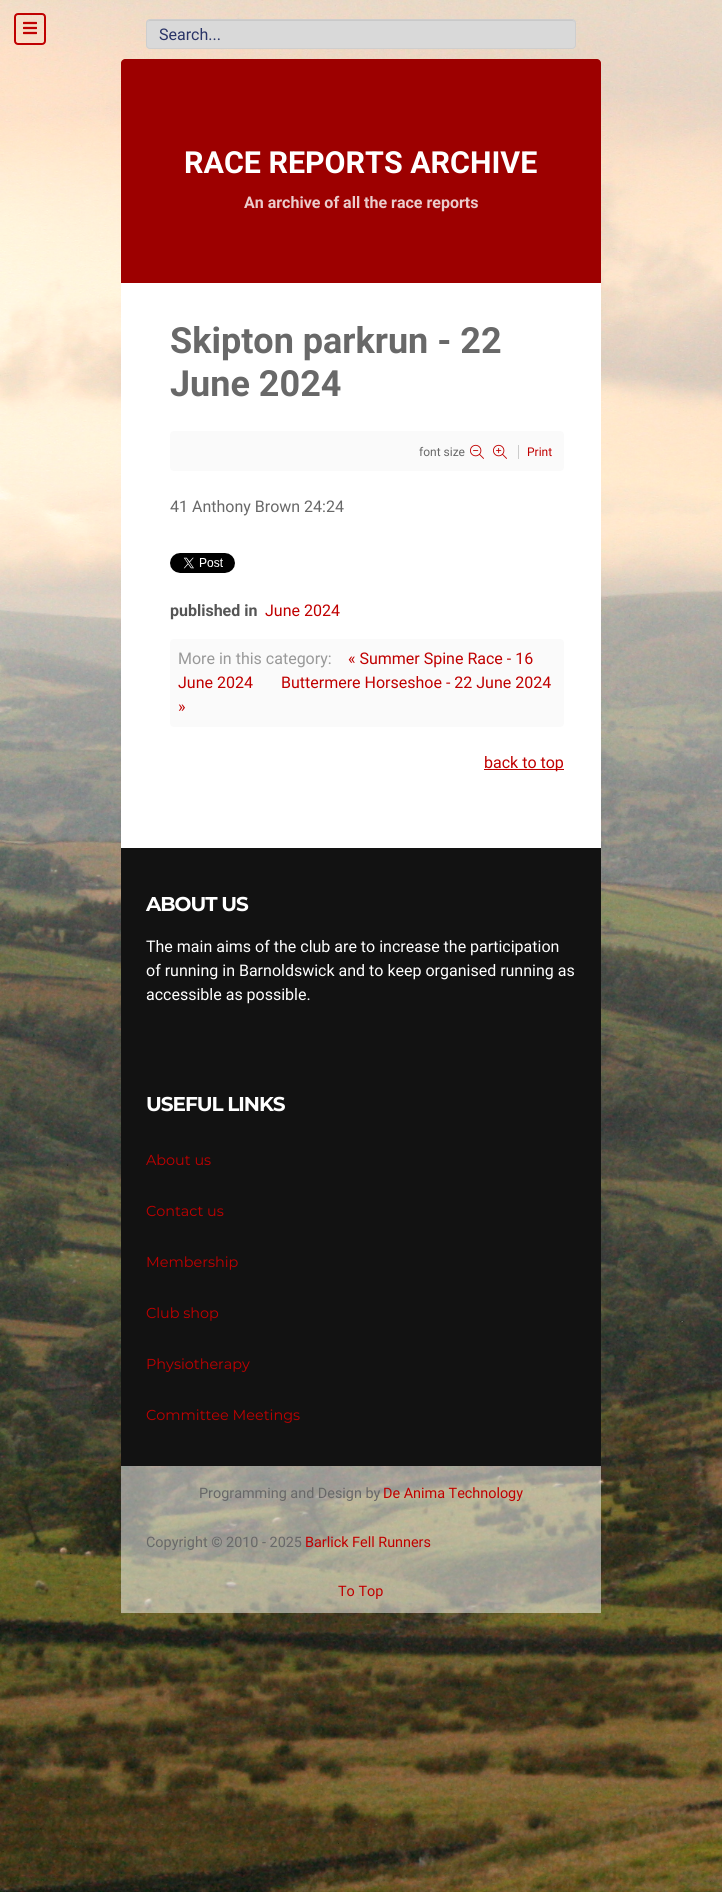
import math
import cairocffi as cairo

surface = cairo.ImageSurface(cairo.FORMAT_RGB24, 722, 1892)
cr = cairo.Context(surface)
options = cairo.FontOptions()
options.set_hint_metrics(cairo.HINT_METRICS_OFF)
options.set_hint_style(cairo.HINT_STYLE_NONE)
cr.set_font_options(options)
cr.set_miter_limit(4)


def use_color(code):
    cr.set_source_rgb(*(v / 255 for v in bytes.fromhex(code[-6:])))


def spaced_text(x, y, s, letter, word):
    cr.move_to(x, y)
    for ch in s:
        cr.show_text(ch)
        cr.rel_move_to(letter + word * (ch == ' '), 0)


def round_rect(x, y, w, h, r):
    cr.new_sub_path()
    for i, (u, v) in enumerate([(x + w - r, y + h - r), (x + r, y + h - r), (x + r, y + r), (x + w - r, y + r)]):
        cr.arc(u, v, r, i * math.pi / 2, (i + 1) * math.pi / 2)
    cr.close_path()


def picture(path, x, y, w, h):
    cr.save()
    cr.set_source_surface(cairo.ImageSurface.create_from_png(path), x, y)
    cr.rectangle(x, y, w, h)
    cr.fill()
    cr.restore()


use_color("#ffffff")
cr.paint()
picture("img1.png", 0, 0, 722, 1892)
round_rect(15, 14, 30, 30, 3)
use_color("#c00000")
cr.stroke()
picture("img2.png", 23, 21, 14, 14)
use_color("#d9d9d9")
round_rect(146, 19, 430, 30, 4)
cr.fill()
use_color("#c9c9c9")
cr.new_path()
cr.move_to(150, 21)
cr.line_to(572, 21)
cr.curve_to(574, 21, 575, 22, 575, 24)
cr.curve_to(575, 22, 574, 20, 572, 20)
cr.line_to(150, 20)
cr.curve_to(148, 20, 147, 22, 147, 24)
cr.curve_to(147, 22, 148, 21, 150, 21)
cr.close_path()
cr.fill()
round_rect(146.5, 19.5, 429, 29, 3.5)
use_color("#cecece")
cr.set_line_width(1)
cr.stroke()
cr.select_font_face("Roboto")
cr.set_font_size(16)
use_color("#2a3467")
cr.move_to(159, 40)
cr.show_text("Search...")
use_color("#9d0000")
cr.new_path()
cr.move_to(125, 59)
cr.line_to(597, 59)
cr.curve_to(599, 59, 601, 61, 601, 63)
cr.line_to(601, 283)
cr.line_to(121, 283)
cr.line_to(121, 63)
cr.curve_to(121, 61, 123, 59, 125, 59)
cr.close_path()
cr.fill()
cr.select_font_face("Roboto", cairo.FONT_SLANT_NORMAL, cairo.FONT_WEIGHT_BOLD)
cr.set_font_size(30.4)
use_color("#ffffff")
cr.move_to(184, 173)
cr.show_text("RACE REPORTS ARCHIVE")
cr.set_font_size(16)
use_color("#ebcccc")
cr.move_to(244, 208)
cr.show_text("An archive of all the race reports")
use_color("#ffffff")
cr.rectangle(121, 283, 480, 565)
cr.fill()
cr.set_font_size(36)
use_color("#686868")
cr.move_to(170, 353)
cr.show_text("Skipton parkrun - 22")
cr.move_to(170, 396)
cr.show_text("June 2024")
use_color("#fafafa")
round_rect(170, 431, 394, 40, 4)
cr.fill()
cr.select_font_face("Roboto")
cr.set_font_size(12)
use_color("#686868")
cr.move_to(419, 456)
cr.show_text("font size")
picture("img3.png", 470, 444, 14, 15)
picture("img4.png", 493, 444, 14, 15)
use_color("#c00000")
cr.move_to(527, 456)
cr.show_text("Print")
use_color("#cccccc")
cr.rectangle(518, 445, 1, 14)
cr.fill()
cr.set_font_size(16)
use_color("#686868")
cr.move_to(170, 512)
cr.show_text("41 Anthony Brown 24:24")
picture("img5.png", 170, 553, 65, 20)
cr.select_font_face("Roboto", cairo.FONT_SLANT_NORMAL, cairo.FONT_WEIGHT_BOLD)
use_color("#555555")
cr.move_to(170, 616)
cr.show_text("published in")
cr.select_font_face("Roboto")
use_color("#c00000")
cr.move_to(265, 616)
cr.show_text("June 2024")
use_color("#fafafa")
round_rect(170, 639, 394, 88, 4)
cr.fill()
use_color("#999999")
cr.move_to(178, 664)
cr.show_text("More in this category:")
use_color("#c00000")
cr.move_to(348, 664)
cr.show_text("« Summer Spine Race - 16")
cr.move_to(178, 688)
cr.show_text("June 2024")
cr.move_to(281, 688)
cr.show_text("Buttermere Horseshoe - 22 June 2024")
cr.move_to(178, 712)
cr.show_text("»")
cr.rectangle(484, 769, 80, 1)
cr.fill()
cr.move_to(484, 768)
cr.show_text("back to top")
use_color("#121212")
cr.rectangle(121, 848, 480, 618)
cr.fill()
cr.select_font_face("Montserrat", cairo.FONT_SLANT_NORMAL, cairo.FONT_WEIGHT_BOLD)
cr.set_font_size(20)
use_color("#ffffff")
spaced_text(146, 911, "ABOUT US", -1, 0)
cr.select_font_face("Roboto")
cr.set_font_size(16)
cr.move_to(146, 952)
cr.show_text("The main aims of the club are to increase the participation")
cr.move_to(146, 976)
cr.show_text("of running in Barnoldswick and to keep organised running as")
cr.move_to(146, 1000)
cr.show_text("accessible as possible.")
cr.select_font_face("Montserrat", cairo.FONT_SLANT_NORMAL, cairo.FONT_WEIGHT_BOLD)
cr.set_font_size(20)
spaced_text(146, 1111, "USEFUL LINKS", -1, 0)
cr.select_font_face("Montserrat")
cr.set_font_size(14.4)
use_color("#c00000")
cr.move_to(146, 1165)
cr.show_text("About us")
cr.move_to(146, 1216)
cr.show_text("Contact us")
cr.move_to(146, 1267)
cr.show_text("Membership")
cr.move_to(146, 1318)
cr.show_text("Club shop")
cr.move_to(146, 1369)
cr.show_text("Physiotherapy")
cr.move_to(146, 1420)
cr.show_text("Committee Meetings")
cr.set_source_rgba(1, 1, 1, 0.51)
cr.rectangle(121, 1466, 480, 147)
cr.fill()
cr.select_font_face("Roboto")
use_color("#686868")
cr.move_to(199, 1498)
cr.show_text("Programming and Design by")
use_color("#c00000")
cr.move_to(383, 1498)
cr.show_text("De Anima Technology")
use_color("#686868")
cr.move_to(146, 1547)
cr.show_text("Copyright © 2010 - 2025")
use_color("#c00000")
cr.move_to(305, 1547)
cr.show_text("Barlick Fell Runners")
cr.move_to(338, 1596)
cr.show_text("To Top")
surface.write_to_png("result.png")
